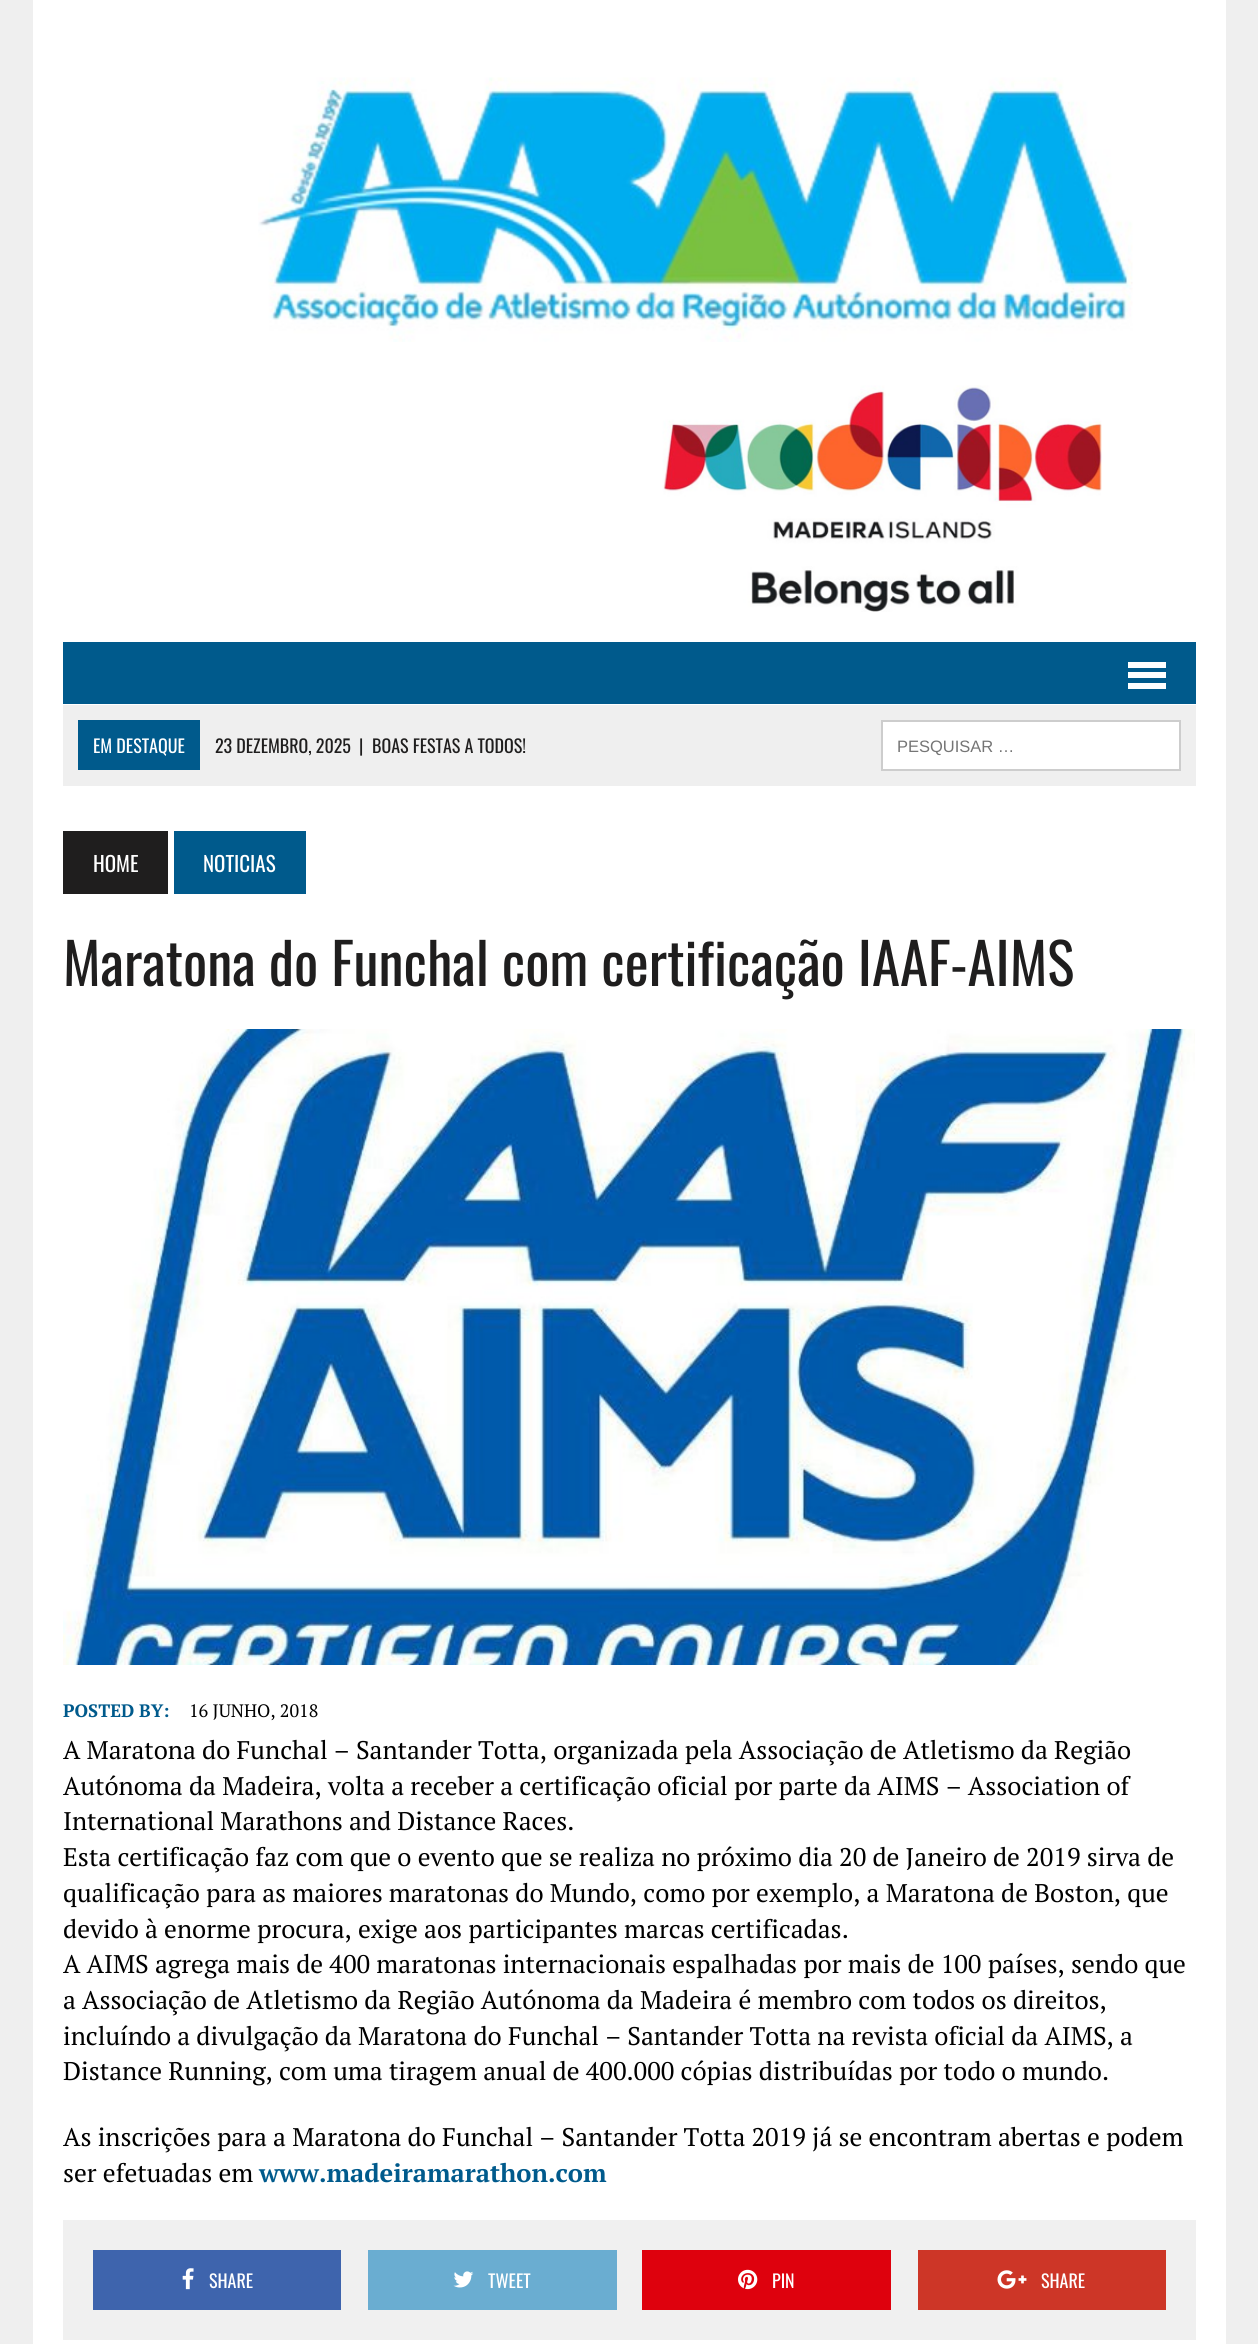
import math
import cairocffi as cairo

surface = cairo.ImageSurface(cairo.FORMAT_RGB24, 1258, 2344)
cr = cairo.Context(surface)
options = cairo.FontOptions()
options.set_hint_metrics(cairo.HINT_METRICS_OFF)
options.set_hint_style(cairo.HINT_STYLE_NONE)
cr.set_font_options(options)
cr.set_miter_limit(4)


def use_color(code):
    cr.set_source_rgb(*(v / 255 for v in bytes.fromhex(code[-6:])))


def picture(path, x, y, w, h):
    cr.save()
    cr.set_source_surface(cairo.ImageSurface.create_from_png(path), x, y)
    cr.rectangle(x, y, w, h)
    cr.fill()
    cr.restore()


use_color("#efefef")
cr.paint()
use_color("#ffffff")
cr.rectangle(33, 0, 1193, 2344)
cr.fill()
picture("img1.png", 258, 77, 875, 265)
picture("img2.png", 662, 385, 440, 227)
use_color("#005a8c")
cr.rectangle(63, 642, 1133, 62)
cr.fill()
use_color("#ffffff")
cr.rectangle(1128, 662, 38, 6)
cr.fill()
cr.rectangle(1128, 672, 38, 6)
cr.fill()
cr.rectangle(1128, 683, 38, 6)
cr.fill()
use_color("#efefef")
cr.rectangle(63, 705, 1133, 81)
cr.fill()
use_color("#005a8c")
cr.rectangle(78, 720, 122, 50)
cr.fill()
cr.select_font_face("Oswald")
cr.set_font_size(18)
use_color("#ffffff")
cr.move_to(93, 753)
cr.show_text("EM DESTAQUE")
use_color("#1f1e1e")
cr.move_to(215, 753)
cr.show_text("23 DEZEMBRO, 2025")
cr.move_to(359, 753)
cr.show_text("|")
cr.move_to(372, 753)
cr.show_text("BOAS FESTAS A TODOS!")
use_color("#ffffff")
cr.rectangle(882, 721, 298, 49)
cr.fill_preserve()
use_color("#cdcdcd")
cr.stroke()
cr.select_font_face("Liberation Sans")
cr.set_font_size(16.5)
use_color("#757575")
cr.move_to(897, 752)
cr.show_text("PESQUISAR …")
use_color("#1f1e1e")
cr.rectangle(63, 831, 105, 63)
cr.fill()
cr.select_font_face("Oswald")
cr.set_font_size(21)
use_color("#ffffff")
cr.move_to(93, 872)
cr.show_text("HOME")
use_color("#005a8c")
cr.rectangle(174, 831, 132, 63)
cr.fill()
use_color("#ffffff")
cr.move_to(203, 872)
cr.show_text("NOTICIAS")
cr.set_font_size(57)
use_color("#1f1e1e")
cr.move_to(63, 986)
cr.show_text("Maratona do Funchal com certificação IAAF-AIMS")
picture("img3.png", 63, 1029, 1132, 636)
cr.select_font_face("PT Serif", cairo.FONT_SLANT_NORMAL, cairo.FONT_WEIGHT_BOLD)
cr.set_font_size(18)
use_color("#005a8c")
cr.move_to(63, 1717)
cr.show_text("POSTED BY:")
cr.select_font_face("PT Serif")
use_color("#000000")
cr.move_to(189, 1717)
cr.show_text("16 JUNHO, 2018")
cr.set_font_size(25.5)
cr.move_to(63, 1759)
cr.show_text("A Maratona do Funchal – Santander Totta, organizada pela Associação de Atletismo da Região")
cr.move_to(63, 1795)
cr.show_text("Autónoma da Madeira, volta a receber a certificação oficial por parte da AIMS – Association of")
cr.move_to(63, 1830)
cr.show_text("International Marathons and Distance Races.")
cr.move_to(63, 1866)
cr.show_text("Esta certificação faz com que o evento que se realiza no próximo dia 20 de Janeiro de 2019 sirva de")
cr.move_to(63, 1902)
cr.show_text("qualificação para as maiores maratonas do Mundo, como por exemplo, a Maratona de Boston, que")
cr.move_to(63, 1938)
cr.show_text("devido à enorme procura, exige aos participantes marcas certificadas.")
cr.move_to(63, 1973)
cr.show_text("A AIMS agrega mais de 400 maratonas internacionais espalhadas por mais de 100 países, sendo que")
cr.move_to(63, 2009)
cr.show_text("a Associação de Atletismo da Região Autónoma da Madeira é membro com todos os direitos,")
cr.move_to(63, 2045)
cr.show_text("incluíndo a divulgação da Maratona do Funchal – Santander Totta na revista oficial da AIMS, a")
cr.move_to(63, 2080)
cr.show_text("Distance Running, com uma tiragem anual de 400.000 cópias distribuídas por todo o mundo.")
cr.move_to(63, 2146)
cr.show_text("As inscrições para a Maratona do Funchal – Santander Totta 2019 já se encontram abertas e podem")
cr.move_to(63, 2182)
cr.show_text("ser efetuadas em")
cr.select_font_face("PT Serif", cairo.FONT_SLANT_NORMAL, cairo.FONT_WEIGHT_BOLD)
use_color("#005a8c")
cr.move_to(259, 2182)
cr.show_text("www.madeiramarathon.com")
use_color("#f0f0f0")
cr.rectangle(63, 2220, 1133, 120)
cr.fill()
use_color("#3e64ad")
cr.rectangle(93, 2250, 248, 60)
cr.fill()
picture("img4.png", 182, 2268, 12, 22)
cr.select_font_face("Oswald")
cr.set_font_size(18)
use_color("#ffffff")
cr.move_to(209, 2288)
cr.show_text("SHARE")
use_color("#6aadd1")
cr.rectangle(368, 2250, 249, 60)
cr.fill()
picture("img5.png", 453, 2271, 21, 17)
use_color("#ffffff")
cr.move_to(488, 2288)
cr.show_text("TWEET")
use_color("#de010d")
cr.rectangle(642, 2250, 249, 60)
cr.fill()
picture("img6.png", 738, 2269, 20, 21)
use_color("#ffffff")
cr.move_to(772, 2288)
cr.show_text("PIN")
use_color("#cd3627")
cr.rectangle(918, 2250, 248, 60)
cr.fill()
picture("img7.png", 997, 2270, 30, 19)
use_color("#ffffff")
cr.move_to(1041, 2288)
cr.show_text("SHARE")
surface.write_to_png("result.png")
